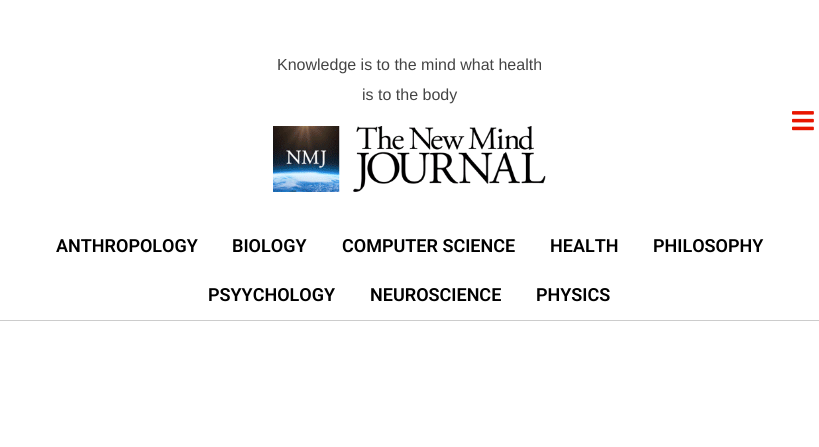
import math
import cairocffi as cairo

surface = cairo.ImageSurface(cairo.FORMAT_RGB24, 819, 447)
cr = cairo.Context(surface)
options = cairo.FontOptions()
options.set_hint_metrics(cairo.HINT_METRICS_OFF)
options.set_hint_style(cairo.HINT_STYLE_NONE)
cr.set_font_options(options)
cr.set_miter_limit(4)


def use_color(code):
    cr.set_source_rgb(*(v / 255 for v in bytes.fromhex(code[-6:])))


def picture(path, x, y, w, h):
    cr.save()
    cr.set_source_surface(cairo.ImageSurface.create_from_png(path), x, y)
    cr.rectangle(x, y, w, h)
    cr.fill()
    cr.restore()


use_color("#ffffff")
cr.paint()
cr.select_font_face("Liberation Sans")
cr.set_font_size(16)
use_color("#444444")
cr.move_to(277, 70)
cr.show_text("Knowledge is to the mind what health")
cr.move_to(362, 100)
cr.show_text("is to the body")
picture("img1.png", 273, 126, 273, 66)
picture("img2.png", 792, 111, 22, 20)
use_color("#cccccc")
cr.rectangle(0, 320, 819, 1)
cr.fill()
cr.select_font_face("Roboto SemiBold")
cr.set_font_size(18)
use_color("#000000")
cr.move_to(56, 252)
cr.show_text("ANTHROPOLOGY")
cr.move_to(232, 252)
cr.show_text("BIOLOGY")
cr.move_to(342, 252)
cr.show_text("COMPUTER SCIENCE")
cr.move_to(550, 252)
cr.show_text("HEALTH")
cr.move_to(653, 252)
cr.show_text("PHILOSOPHY")
cr.move_to(208, 301)
cr.show_text("PSYYCHOLOGY")
cr.move_to(370, 301)
cr.show_text("NEUROSCIENCE")
cr.move_to(536, 301)
cr.show_text("PHYSICS")
surface.write_to_png("result.png")
